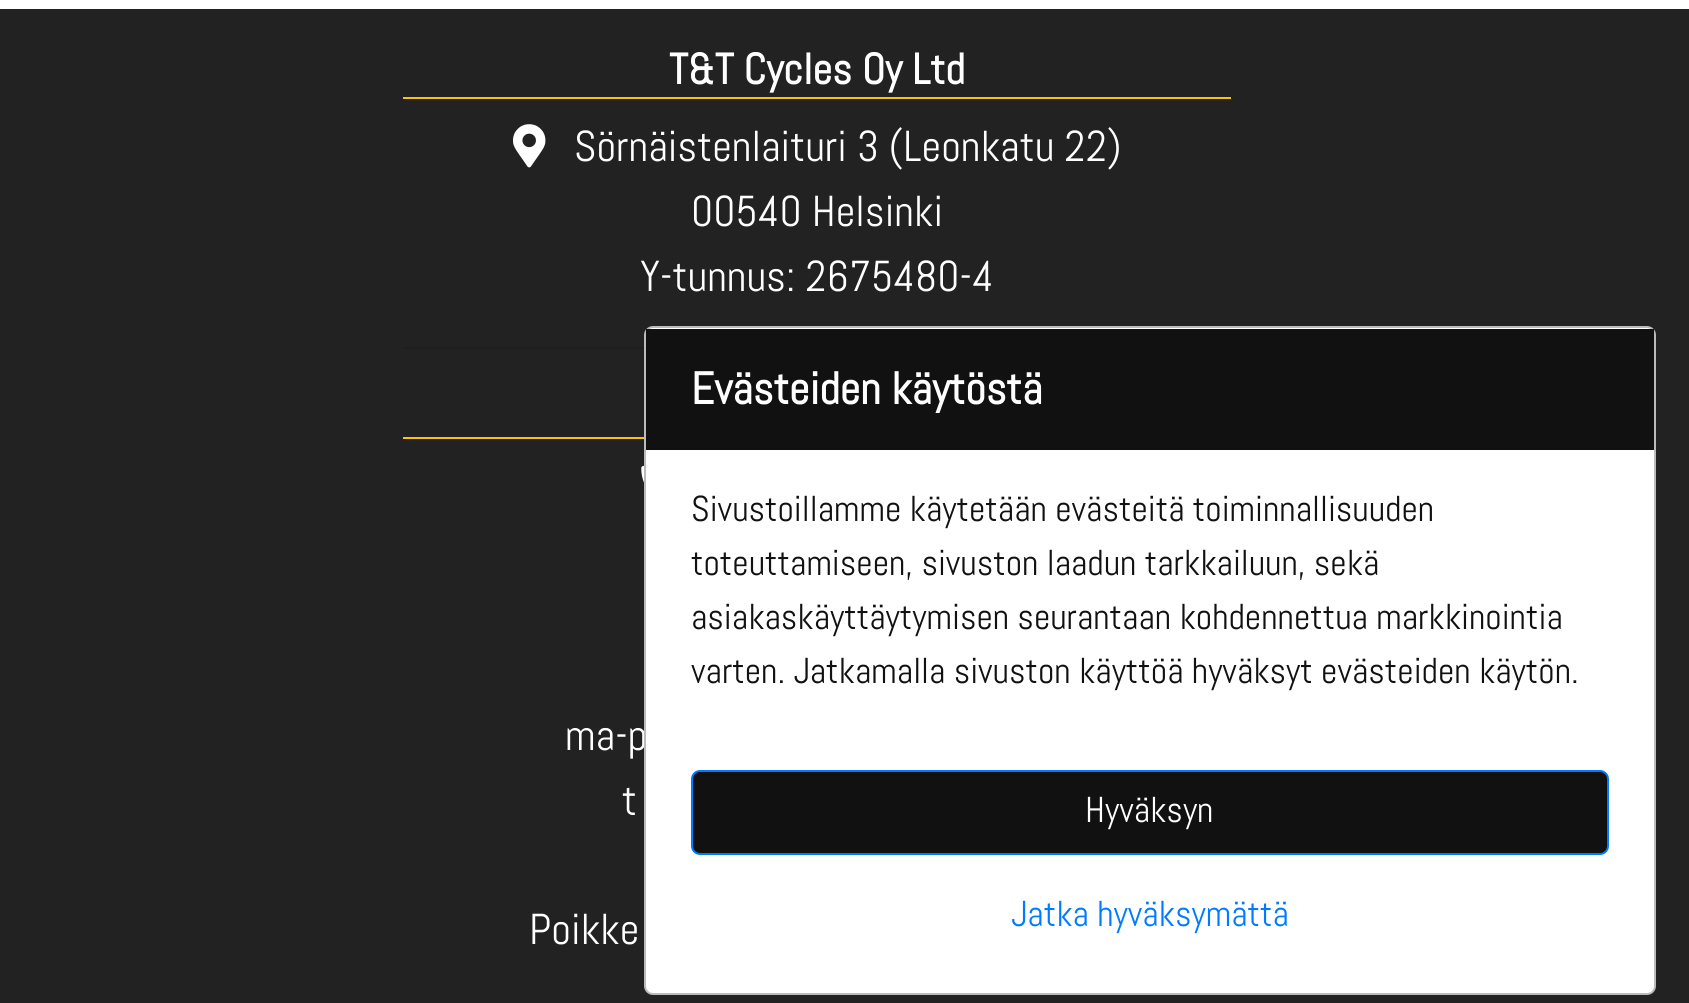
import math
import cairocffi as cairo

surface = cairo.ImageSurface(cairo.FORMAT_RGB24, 1689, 1003)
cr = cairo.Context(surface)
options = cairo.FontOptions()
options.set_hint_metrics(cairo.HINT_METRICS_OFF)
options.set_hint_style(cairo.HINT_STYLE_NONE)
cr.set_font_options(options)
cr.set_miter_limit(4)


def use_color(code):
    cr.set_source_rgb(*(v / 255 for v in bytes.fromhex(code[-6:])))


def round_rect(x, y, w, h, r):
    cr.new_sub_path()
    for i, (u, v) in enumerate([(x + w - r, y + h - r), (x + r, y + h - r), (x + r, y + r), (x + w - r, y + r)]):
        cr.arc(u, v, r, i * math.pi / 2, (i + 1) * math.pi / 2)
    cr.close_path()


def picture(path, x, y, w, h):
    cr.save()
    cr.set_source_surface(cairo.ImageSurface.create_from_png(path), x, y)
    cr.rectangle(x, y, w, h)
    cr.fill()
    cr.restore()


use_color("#ffffff")
cr.paint()
use_color("#222222")
cr.rectangle(0, 9, 1689, 994)
cr.fill()
use_color("#ffc107")
cr.rectangle(403, 97, 828, 2)
cr.fill()
cr.select_font_face("Abel", cairo.FONT_SLANT_NORMAL, cairo.FONT_WEIGHT_BOLD)
cr.set_font_size(43.25)
use_color("#ffffff")
cr.move_to(669, 84)
cr.show_text("T&T Cycles Oy Ltd")
picture("img1.png", 513, 124, 33, 44)
cr.select_font_face("Abel")
cr.move_to(574, 161)
cr.show_text("Sörnäistenlaituri 3 (Leonkatu 22)")
cr.move_to(691, 226)
cr.show_text("00540 Helsinki")
cr.move_to(640, 291)
cr.show_text("Y-tunnus: 2675480-4")
use_color("#1f1f1f")
cr.rectangle(403, 347, 241, 2)
cr.fill()
use_color("#ffc107")
cr.rectangle(403, 437, 241, 2)
cr.fill()
picture("img2.png", 641, 465, 3, 18)
use_color("#ffffff")
cr.move_to(565, 750)
cr.show_text("ma-p")
cr.move_to(622, 815)
cr.show_text("t")
cr.move_to(529, 944)
cr.show_text("Poikke")
round_rect(645, 327, 1010, 667, 8)
cr.fill_preserve()
use_color("#bbbbbb")
cr.stroke()
use_color("#111111")
cr.rectangle(646, 329, 1008, 121)
cr.fill()
cr.select_font_face("Abel", cairo.FONT_SLANT_NORMAL, cairo.FONT_WEIGHT_BOLD)
cr.set_font_size(45)
use_color("#ffffff")
cr.move_to(691, 404)
cr.show_text("Evästeiden käytöstä")
cr.select_font_face("Abel")
cr.set_font_size(36)
use_color("#111111")
cr.move_to(691, 521)
cr.show_text("Sivustoillamme käytetään evästeitä toiminnallisuuden")
cr.move_to(691, 575)
cr.show_text("toteuttamiseen, sivuston laadun tarkkailuun, sekä")
cr.move_to(691, 629)
cr.show_text("asiakaskäyttäytymisen seurantaan kohdennettua markkinointia")
cr.move_to(691, 683)
cr.show_text("varten. Jatkamalla sivuston käyttöä hyväksyt evästeiden käytön.")
round_rect(692, 771, 916, 83, 8)
cr.fill_preserve()
use_color("#007bff")
cr.stroke()
use_color("#ffffff")
cr.move_to(1085, 822)
cr.show_text("Hyväksyn")
use_color("#007bff")
cr.move_to(1011, 926)
cr.show_text("Jatka hyväksymättä")
surface.write_to_png("result.png")
